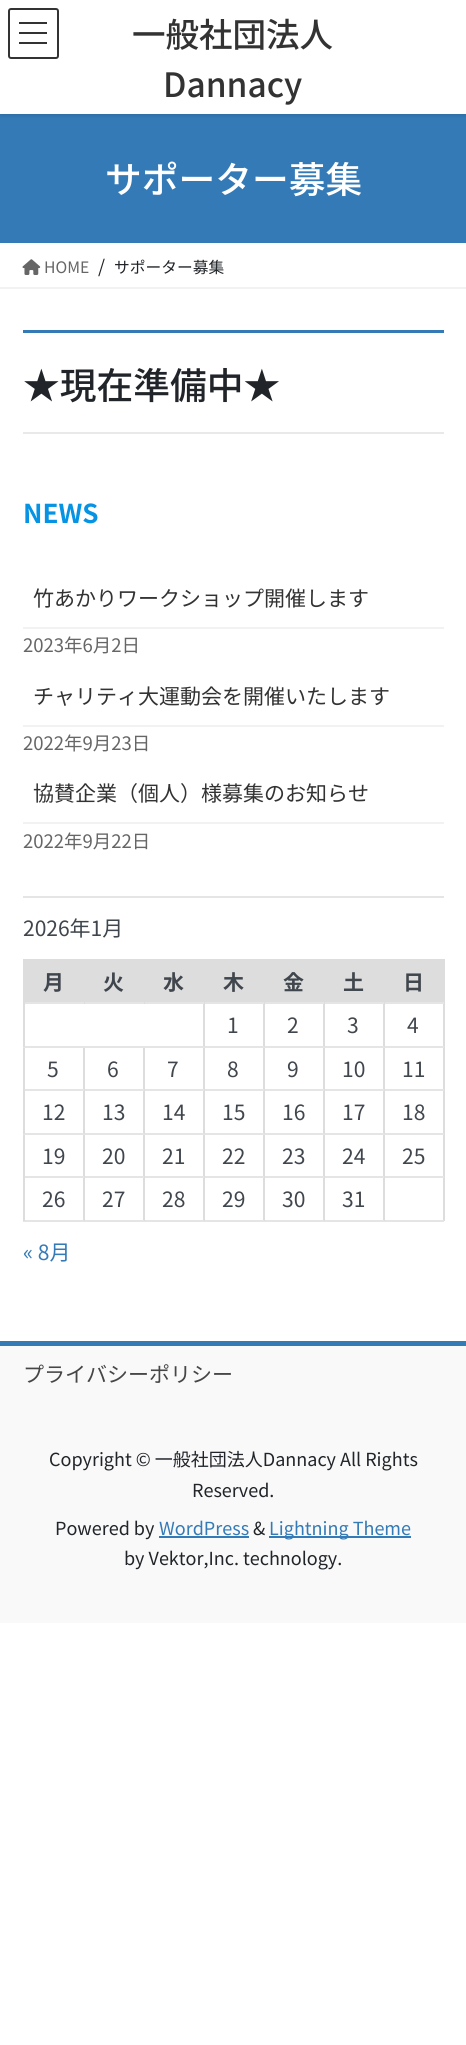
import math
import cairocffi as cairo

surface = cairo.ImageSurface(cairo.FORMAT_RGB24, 466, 2045)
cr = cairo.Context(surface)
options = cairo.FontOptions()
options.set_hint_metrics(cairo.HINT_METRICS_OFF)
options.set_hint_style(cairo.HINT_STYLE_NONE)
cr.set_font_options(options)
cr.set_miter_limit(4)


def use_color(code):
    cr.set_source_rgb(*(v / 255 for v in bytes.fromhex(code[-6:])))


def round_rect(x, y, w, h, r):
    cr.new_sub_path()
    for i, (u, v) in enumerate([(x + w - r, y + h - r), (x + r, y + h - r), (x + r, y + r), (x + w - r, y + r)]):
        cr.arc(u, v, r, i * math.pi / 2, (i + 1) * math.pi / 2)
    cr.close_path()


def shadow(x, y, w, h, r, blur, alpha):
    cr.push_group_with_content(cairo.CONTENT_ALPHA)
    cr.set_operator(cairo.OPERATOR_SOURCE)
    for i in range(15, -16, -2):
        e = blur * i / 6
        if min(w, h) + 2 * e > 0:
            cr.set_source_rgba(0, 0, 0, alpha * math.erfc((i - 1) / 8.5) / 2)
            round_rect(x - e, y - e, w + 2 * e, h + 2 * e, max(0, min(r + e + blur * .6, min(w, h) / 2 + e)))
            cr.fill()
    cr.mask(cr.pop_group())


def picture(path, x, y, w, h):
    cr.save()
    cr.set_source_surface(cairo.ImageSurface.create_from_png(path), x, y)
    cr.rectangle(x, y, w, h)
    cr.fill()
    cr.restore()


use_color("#ffffff")
cr.paint()
use_color("#337ab7")
cr.rectangle(0, 114, 466, 129)
cr.fill()
cr.save()
cr.rectangle(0, 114, 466, 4)
cr.clip()
use_color("#000000")
shadow(0, 2, 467, 114, 0, 2, 0.1)
cr.restore()
use_color("#333333")
cr.rectangle(19, 22, 28, 2)
cr.fill()
cr.rectangle(19, 32, 28, 2)
cr.fill()
cr.rectangle(19, 42, 28, 2)
cr.fill()
round_rect(9, 9, 49, 49, 2)
cr.stroke()
cr.select_font_face("Noto Sans JP Medium")
cr.set_font_size(33.5)
cr.move_to(132, 47)
cr.show_text("一般社団法人")
cr.move_to(163, 97)
cr.show_text("Dannacy")
cr.set_font_size(36.75)
use_color("#ffffff")
cr.move_to(105, 193)
cr.show_text("サポーター募集")
use_color("#f2f2f2")
cr.rectangle(0, 287, 466, 2)
cr.fill()
picture("img1.png", 22, 259, 19, 16)
cr.select_font_face("Noto Sans JP")
cr.set_font_size(15.75)
use_color("#666666")
cr.move_to(44, 273)
cr.show_text("HOME")
cr.set_font_size(18)
use_color("#212529")
cr.move_to(98, 273)
cr.show_text("/")
cr.set_font_size(15.75)
cr.move_to(114, 273)
cr.show_text("サポーター募集")
use_color("#337ab7")
cr.rectangle(23, 330, 421, 3)
cr.fill()
use_color("#e9e9e9")
cr.rectangle(23, 432, 421, 2)
cr.fill()
cr.select_font_face("Noto Sans JP Medium")
cr.set_font_size(36.75)
use_color("#212529")
cr.move_to(23, 399)
cr.show_text("★現在準備中★")
cr.select_font_face("Noto Sans JP", cairo.FONT_SLANT_NORMAL, cairo.FONT_WEIGHT_BOLD)
cr.set_font_size(26)
use_color("#0693e3")
cr.move_to(23, 523)
cr.show_text("NEWS")
use_color("#f2f2f2")
cr.rectangle(23, 627, 421, 2)
cr.fill()
cr.select_font_face("Noto Sans JP")
cr.set_font_size(21)
use_color("#333333")
cr.move_to(33, 606)
cr.show_text("竹あかりワークショップ開催します")
cr.set_font_size(18.5)
use_color("#666666")
cr.move_to(23, 652)
cr.show_text("2023年6月2日")
use_color("#f2f2f2")
cr.rectangle(23, 725, 421, 2)
cr.fill()
cr.set_font_size(21)
use_color("#333333")
cr.move_to(33, 704)
cr.show_text("チャリティ大運動会を開催いたします")
cr.set_font_size(18.5)
use_color("#666666")
cr.move_to(23, 750)
cr.show_text("2022年9月23日")
use_color("#f2f2f2")
cr.rectangle(23, 822, 421, 2)
cr.fill()
cr.set_font_size(21)
use_color("#333333")
cr.move_to(33, 801)
cr.show_text("協賛企業（個人）様募集のお知らせ")
cr.set_font_size(18.5)
use_color("#666666")
cr.move_to(23, 848)
cr.show_text("2022年9月22日")
use_color("#e5e5e5")
cr.rectangle(23, 896, 421, 2)
cr.fill()
cr.set_font_size(21)
use_color("#40464d")
cr.move_to(23, 936)
cr.show_text("2026年1月")
use_color("#dddddd")
cr.rectangle(25, 961, 58, 41)
cr.fill()
cr.rectangle(383, 959, 61, 2)
cr.fill()
cr.rectangle(443, 1002, 2, 219)
cr.fill()
cr.rectangle(443, 959, 2, 45)
cr.fill()
use_color("#e5e5e5")
cr.rectangle(383, 1220, 61, 2)
cr.fill()
use_color("#dddddd")
cr.rectangle(383, 1176, 2, 45)
cr.fill()
use_color("#e5e5e5")
cr.rectangle(383, 1176, 61, 2)
cr.fill()
use_color("#dddddd")
cr.rectangle(383, 1133, 2, 45)
cr.fill()
use_color("#e5e5e5")
cr.rectangle(383, 1133, 61, 2)
cr.fill()
use_color("#dddddd")
cr.rectangle(383, 1089, 2, 45)
cr.fill()
use_color("#e5e5e5")
cr.rectangle(383, 1089, 61, 2)
cr.fill()
use_color("#dddddd")
cr.rectangle(383, 1046, 2, 45)
cr.fill()
use_color("#e5e5e5")
cr.rectangle(383, 1046, 61, 2)
cr.fill()
use_color("#dddddd")
cr.rectangle(383, 1002, 2, 45)
cr.fill()
use_color("#e5e5e5")
cr.rectangle(383, 1002, 61, 2)
cr.fill()
use_color("#dddddd")
cr.rectangle(383, 959, 2, 45)
cr.fill()
cr.rectangle(323, 959, 61, 2)
cr.fill()
use_color("#e5e5e5")
cr.rectangle(323, 1220, 61, 2)
cr.fill()
use_color("#dddddd")
cr.rectangle(323, 1176, 2, 45)
cr.fill()
use_color("#e5e5e5")
cr.rectangle(323, 1176, 61, 2)
cr.fill()
use_color("#dddddd")
cr.rectangle(323, 1133, 2, 45)
cr.fill()
use_color("#e5e5e5")
cr.rectangle(323, 1133, 61, 2)
cr.fill()
use_color("#dddddd")
cr.rectangle(323, 1089, 2, 45)
cr.fill()
use_color("#e5e5e5")
cr.rectangle(323, 1089, 61, 2)
cr.fill()
use_color("#dddddd")
cr.rectangle(323, 1046, 2, 45)
cr.fill()
use_color("#e5e5e5")
cr.rectangle(323, 1046, 61, 2)
cr.fill()
use_color("#dddddd")
cr.rectangle(323, 1002, 2, 45)
cr.fill()
use_color("#e5e5e5")
cr.rectangle(323, 1002, 61, 2)
cr.fill()
use_color("#dddddd")
cr.rectangle(323, 959, 2, 45)
cr.fill()
cr.rectangle(263, 959, 61, 2)
cr.fill()
use_color("#e5e5e5")
cr.rectangle(263, 1220, 61, 2)
cr.fill()
use_color("#dddddd")
cr.rectangle(263, 1176, 2, 45)
cr.fill()
use_color("#e5e5e5")
cr.rectangle(263, 1176, 61, 2)
cr.fill()
use_color("#dddddd")
cr.rectangle(263, 1133, 2, 45)
cr.fill()
use_color("#e5e5e5")
cr.rectangle(263, 1133, 61, 2)
cr.fill()
use_color("#dddddd")
cr.rectangle(263, 1089, 2, 45)
cr.fill()
use_color("#e5e5e5")
cr.rectangle(263, 1089, 61, 2)
cr.fill()
use_color("#dddddd")
cr.rectangle(263, 1046, 2, 45)
cr.fill()
use_color("#e5e5e5")
cr.rectangle(263, 1046, 61, 2)
cr.fill()
use_color("#dddddd")
cr.rectangle(263, 1002, 2, 45)
cr.fill()
use_color("#e5e5e5")
cr.rectangle(263, 1002, 61, 2)
cr.fill()
use_color("#dddddd")
cr.rectangle(263, 959, 2, 45)
cr.fill()
cr.rectangle(203, 959, 61, 2)
cr.fill()
use_color("#e5e5e5")
cr.rectangle(203, 1220, 61, 2)
cr.fill()
use_color("#dddddd")
cr.rectangle(203, 1176, 2, 45)
cr.fill()
use_color("#e5e5e5")
cr.rectangle(203, 1176, 61, 2)
cr.fill()
use_color("#dddddd")
cr.rectangle(203, 1133, 2, 45)
cr.fill()
use_color("#e5e5e5")
cr.rectangle(203, 1133, 61, 2)
cr.fill()
use_color("#dddddd")
cr.rectangle(203, 1089, 2, 45)
cr.fill()
use_color("#e5e5e5")
cr.rectangle(203, 1089, 61, 2)
cr.fill()
use_color("#dddddd")
cr.rectangle(203, 1046, 2, 45)
cr.fill()
use_color("#e5e5e5")
cr.rectangle(203, 1046, 61, 2)
cr.fill()
use_color("#dddddd")
cr.rectangle(203, 1002, 2, 45)
cr.fill()
use_color("#e5e5e5")
cr.rectangle(203, 1002, 61, 2)
cr.fill()
use_color("#dddddd")
cr.rectangle(203, 959, 2, 45)
cr.fill()
cr.rectangle(143, 959, 61, 2)
cr.fill()
use_color("#e5e5e5")
cr.rectangle(143, 1002, 61, 2)
cr.fill()
use_color("#dddddd")
cr.rectangle(143, 959, 2, 45)
cr.fill()
cr.rectangle(83, 959, 61, 2)
cr.fill()
use_color("#e5e5e5")
cr.rectangle(83, 1002, 61, 2)
cr.fill()
use_color("#dddddd")
cr.rectangle(83, 959, 2, 45)
cr.fill()
cr.rectangle(23, 959, 61, 2)
cr.fill()
use_color("#e5e5e5")
cr.rectangle(143, 1220, 61, 2)
cr.fill()
use_color("#dddddd")
cr.rectangle(143, 1176, 2, 45)
cr.fill()
use_color("#e5e5e5")
cr.rectangle(143, 1176, 61, 2)
cr.fill()
use_color("#dddddd")
cr.rectangle(143, 1133, 2, 45)
cr.fill()
use_color("#e5e5e5")
cr.rectangle(143, 1133, 61, 2)
cr.fill()
use_color("#dddddd")
cr.rectangle(143, 1089, 2, 45)
cr.fill()
use_color("#e5e5e5")
cr.rectangle(143, 1089, 61, 2)
cr.fill()
use_color("#dddddd")
cr.rectangle(143, 1046, 2, 45)
cr.fill()
use_color("#e5e5e5")
cr.rectangle(83, 1220, 61, 2)
cr.fill()
use_color("#dddddd")
cr.rectangle(83, 1176, 2, 45)
cr.fill()
use_color("#e5e5e5")
cr.rectangle(83, 1176, 61, 2)
cr.fill()
use_color("#dddddd")
cr.rectangle(83, 1133, 2, 45)
cr.fill()
use_color("#e5e5e5")
cr.rectangle(83, 1133, 61, 2)
cr.fill()
use_color("#dddddd")
cr.rectangle(83, 1089, 2, 45)
cr.fill()
use_color("#e5e5e5")
cr.rectangle(83, 1089, 61, 2)
cr.fill()
use_color("#dddddd")
cr.rectangle(83, 1046, 2, 45)
cr.fill()
use_color("#e5e5e5")
cr.rectangle(23, 1220, 61, 2)
cr.fill()
use_color("#dddddd")
cr.rectangle(23, 1176, 2, 45)
cr.fill()
use_color("#e5e5e5")
cr.rectangle(23, 1176, 61, 2)
cr.fill()
use_color("#dddddd")
cr.rectangle(23, 1133, 2, 45)
cr.fill()
use_color("#e5e5e5")
cr.rectangle(23, 1133, 61, 2)
cr.fill()
use_color("#dddddd")
cr.rectangle(23, 1089, 2, 45)
cr.fill()
use_color("#e5e5e5")
cr.rectangle(23, 1089, 61, 2)
cr.fill()
use_color("#dddddd")
cr.rectangle(23, 1046, 2, 45)
cr.fill()
use_color("#e5e5e5")
cr.rectangle(23, 1046, 181, 2)
cr.fill()
use_color("#dddddd")
cr.rectangle(23, 1002, 2, 45)
cr.fill()
use_color("#e5e5e5")
cr.rectangle(23, 1002, 61, 2)
cr.fill()
use_color("#dddddd")
cr.rectangle(23, 959, 2, 45)
cr.fill()
cr.select_font_face("Noto Sans JP", cairo.FONT_SLANT_NORMAL, cairo.FONT_WEIGHT_BOLD)
use_color("#40464d")
cr.move_to(43, 990)
cr.show_text("月")
use_color("#dddddd")
cr.rectangle(85, 961, 58, 41)
cr.fill()
use_color("#40464d")
cr.move_to(103, 990)
cr.show_text("火")
use_color("#dddddd")
cr.rectangle(145, 961, 58, 41)
cr.fill()
use_color("#40464d")
cr.move_to(163, 990)
cr.show_text("水")
use_color("#dddddd")
cr.rectangle(205, 961, 58, 41)
cr.fill()
use_color("#40464d")
cr.move_to(223, 990)
cr.show_text("木")
use_color("#dddddd")
cr.rectangle(265, 961, 58, 41)
cr.fill()
use_color("#40464d")
cr.move_to(283, 990)
cr.show_text("金")
use_color("#dddddd")
cr.rectangle(325, 961, 58, 41)
cr.fill()
use_color("#40464d")
cr.move_to(343, 990)
cr.show_text("土")
use_color("#dddddd")
cr.rectangle(385, 961, 58, 41)
cr.fill()
use_color("#40464d")
cr.move_to(403, 990)
cr.show_text("日")
cr.select_font_face("Noto Sans JP")
cr.move_to(227, 1033)
cr.show_text("1")
cr.move_to(287, 1033)
cr.show_text("2")
cr.move_to(347, 1033)
cr.show_text("3")
cr.move_to(407, 1033)
cr.show_text("4")
cr.move_to(47, 1077)
cr.show_text("5")
cr.move_to(107, 1077)
cr.show_text("6")
cr.move_to(167, 1077)
cr.show_text("7")
cr.move_to(227, 1077)
cr.show_text("8")
cr.move_to(287, 1077)
cr.show_text("9")
cr.move_to(342, 1077)
cr.show_text("10")
cr.move_to(402, 1077)
cr.show_text("11")
cr.move_to(42, 1120)
cr.show_text("12")
cr.move_to(102, 1120)
cr.show_text("13")
cr.move_to(162, 1120)
cr.show_text("14")
cr.move_to(222, 1120)
cr.show_text("15")
cr.move_to(282, 1120)
cr.show_text("16")
cr.move_to(342, 1120)
cr.show_text("17")
cr.move_to(402, 1120)
cr.show_text("18")
cr.move_to(42, 1164)
cr.show_text("19")
cr.move_to(102, 1164)
cr.show_text("20")
cr.move_to(162, 1164)
cr.show_text("21")
cr.move_to(222, 1164)
cr.show_text("22")
cr.move_to(282, 1164)
cr.show_text("23")
cr.move_to(342, 1164)
cr.show_text("24")
cr.move_to(402, 1164)
cr.show_text("25")
cr.move_to(42, 1207)
cr.show_text("26")
cr.move_to(102, 1207)
cr.show_text("27")
cr.move_to(162, 1207)
cr.show_text("28")
cr.move_to(222, 1207)
cr.show_text("29")
cr.move_to(282, 1207)
cr.show_text("30")
cr.move_to(342, 1207)
cr.show_text("31")
use_color("#337ab7")
cr.move_to(23, 1260)
cr.show_text("« 8月")
use_color("#f9f9f9")
cr.rectangle(0, 1346, 466, 277)
cr.fill()
use_color("#337ab7")
cr.rectangle(0, 1341, 466, 5)
cr.fill()
use_color("#464646")
cr.move_to(23, 1382)
cr.show_text("プライバシーポリシー")
cr.set_font_size(18)
use_color("#212529")
cr.move_to(49, 1466)
cr.show_text("Copyright © 一般社団法人Dannacy All Rights")
cr.move_to(192, 1497)
cr.show_text("Reserved.")
cr.move_to(55, 1535)
cr.show_text("Powered by")
use_color("#337ab7")
cr.move_to(159, 1535)
cr.show_text("WordPress")
cr.rectangle(159, 1536, 90, 2)
cr.fill()
use_color("#212529")
cr.move_to(253, 1535)
cr.show_text("&")
use_color("#337ab7")
cr.rectangle(269, 1536, 142, 2)
cr.fill()
cr.move_to(269, 1535)
cr.show_text("Lightning Theme")
use_color("#212529")
cr.move_to(124, 1565)
cr.show_text("by Vektor,Inc. technology.")
surface.write_to_png("result.png")
